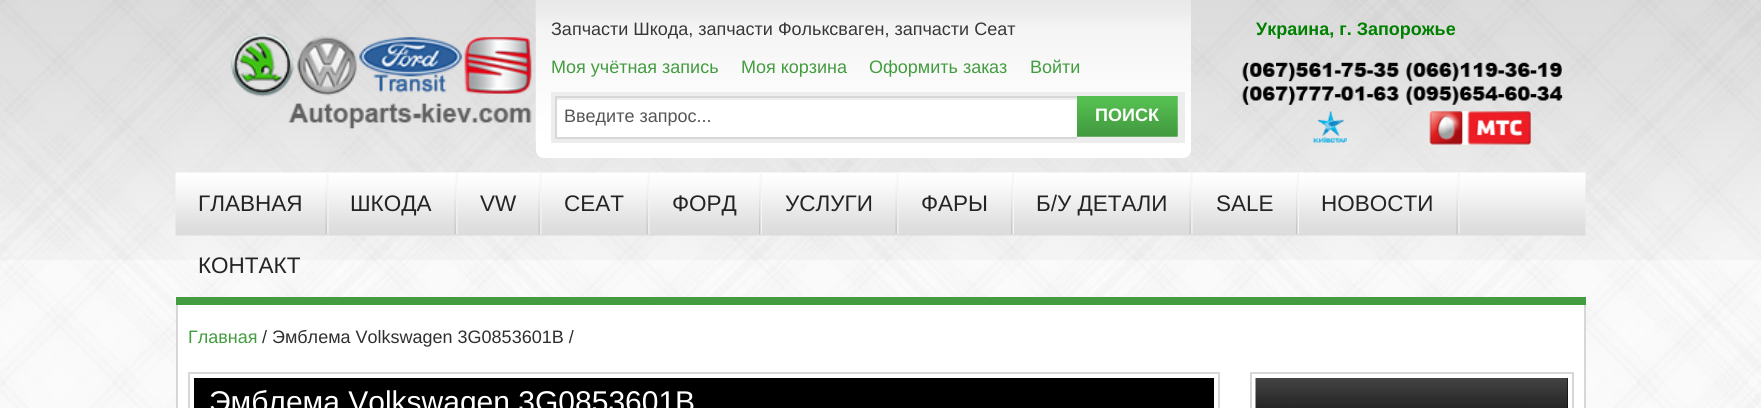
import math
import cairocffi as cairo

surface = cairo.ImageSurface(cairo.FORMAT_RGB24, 1761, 408)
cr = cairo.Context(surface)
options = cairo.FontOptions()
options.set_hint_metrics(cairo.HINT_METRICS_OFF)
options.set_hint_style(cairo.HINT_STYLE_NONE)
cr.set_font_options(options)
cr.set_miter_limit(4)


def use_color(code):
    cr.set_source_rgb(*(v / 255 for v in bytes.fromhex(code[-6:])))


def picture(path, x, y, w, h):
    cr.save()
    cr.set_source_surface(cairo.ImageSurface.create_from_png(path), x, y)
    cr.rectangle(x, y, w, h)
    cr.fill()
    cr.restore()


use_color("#ffffff")
cr.paint()
picture("img1.png", 0, 0, 1761, 408)
picture("img2.png", 0, 0, 1761, 260)
use_color("#ffffff")
cr.new_path()
cr.move_to(536, 0)
cr.line_to(1191, 0)
cr.line_to(1191, 150)
cr.curve_to(1191, 154.5, 1187.5, 158, 1183, 158)
cr.line_to(544, 158)
cr.curve_to(539.5, 158, 536, 154.5, 536, 150)
cr.close_path()
cr.fill()
picture("img3.png", 535, 0, 656, 141)
cr.select_font_face("Liberation Sans")
cr.set_font_size(18)
use_color("#383838")
cr.move_to(551, 35)
cr.show_text("Запчасти Шкода, запчасти Фольксваген, запчасти Сеат")
use_color("#439c40")
cr.move_to(551, 73)
cr.show_text("Моя учётная запись")
cr.move_to(741, 73)
cr.show_text("Моя корзина")
cr.move_to(869, 73)
cr.show_text("Оформить заказ")
cr.move_to(1030, 73)
cr.show_text("Войти")
use_color("#ededed")
cr.rectangle(551, 92, 634, 51)
cr.fill()
use_color("#ffffff")
cr.rectangle(557, 100, 520, 37)
cr.fill()
use_color("#d7d7d7")
cr.rectangle(555, 96, 522, 2)
cr.fill()
cr.rectangle(555, 137, 522, 2)
cr.fill()
cr.rectangle(555, 96, 2, 42)
cr.fill()
use_color("#555555")
cr.move_to(564, 122)
cr.show_text("Введите запрос...")
picture("img4.png", 1077, 96, 101, 41)
picture("img5.png", 1077, 96, 101, 41)
cr.select_font_face("Liberation Sans", cairo.FONT_SLANT_NORMAL, cairo.FONT_WEIGHT_BOLD)
use_color("#ffffff")
cr.move_to(1095, 121)
cr.show_text("ПОИСК")
use_color("#008000")
cr.move_to(1256, 35)
cr.show_text("Украина, г. Запорожье")
picture("img6.png", 1242, 62, 321, 83)
picture("img7.png", 230, 33, 302, 96)
picture("img8.png", 175, 172, 1411, 64)
use_color("#439c40")
cr.rectangle(176, 297, 1410, 8)
cr.fill()
picture("img9.png", 325, 172, 4, 62)
cr.select_font_face("Liberation Sans")
cr.set_font_size(22.5)
use_color("#242424")
cr.move_to(198, 211)
cr.show_text("ГЛАВНАЯ")
picture("img10.png", 454, 172, 4, 62)
cr.move_to(350, 211)
cr.show_text("ШКОДА")
picture("img11.png", 538, 173, 4, 61)
cr.move_to(480, 211)
cr.show_text("VW")
picture("img11.png", 646, 173, 4, 61)
cr.move_to(564, 211)
cr.show_text("СЕАТ")
picture("img12.png", 759, 172, 3, 62)
cr.move_to(672, 211)
cr.show_text("ФОРД")
picture("img13.png", 895, 172, 4, 62)
cr.move_to(785, 211)
cr.show_text("УСЛУГИ")
picture("img14.png", 1011, 172, 3, 62)
cr.move_to(921, 211)
cr.show_text("ФАРЫ")
picture("img9.png", 1189, 172, 4, 62)
cr.move_to(1036, 211)
cr.show_text("Б/У ДЕТАЛИ")
picture("img14.png", 1296, 172, 3, 62)
cr.move_to(1216, 211)
cr.show_text("SALE")
picture("img15.png", 1456, 172, 4, 62)
cr.move_to(1321, 211)
cr.show_text("НОВОСТИ")
cr.move_to(198, 273)
cr.show_text("КОНТАКТ")
use_color("#ffffff")
cr.rectangle(178, 305, 1406, 103)
cr.fill()
use_color("#d7d7d7")
cr.rectangle(1584, 305, 2, 103)
cr.fill()
cr.rectangle(176, 305, 2, 103)
cr.fill()
cr.set_font_size(18)
use_color("#439c40")
cr.move_to(188, 343)
cr.show_text("Главная")
use_color("#2f2f2f")
cr.move_to(262, 343)
cr.show_text("/ Эмблема Volkswagen 3G0853601B /")
cr.rectangle(189, 373, 1030, 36)
use_color("#d7d7d7")
cr.stroke()
use_color("#000000")
cr.rectangle(194, 378, 1020, 30)
cr.fill()
cr.set_font_size(30)
use_color("#ffffff")
cr.move_to(209, 412)
cr.show_text("Эмблема Volkswagen 3G0853601B")
cr.rectangle(1251, 373, 322, 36)
use_color("#d7d7d7")
cr.stroke()
use_color("#000000")
cr.rectangle(1567, 378, 1, 30)
cr.fill()
picture("img16.png", 1255, 378, 313, 30)
surface.write_to_png("result.png")
